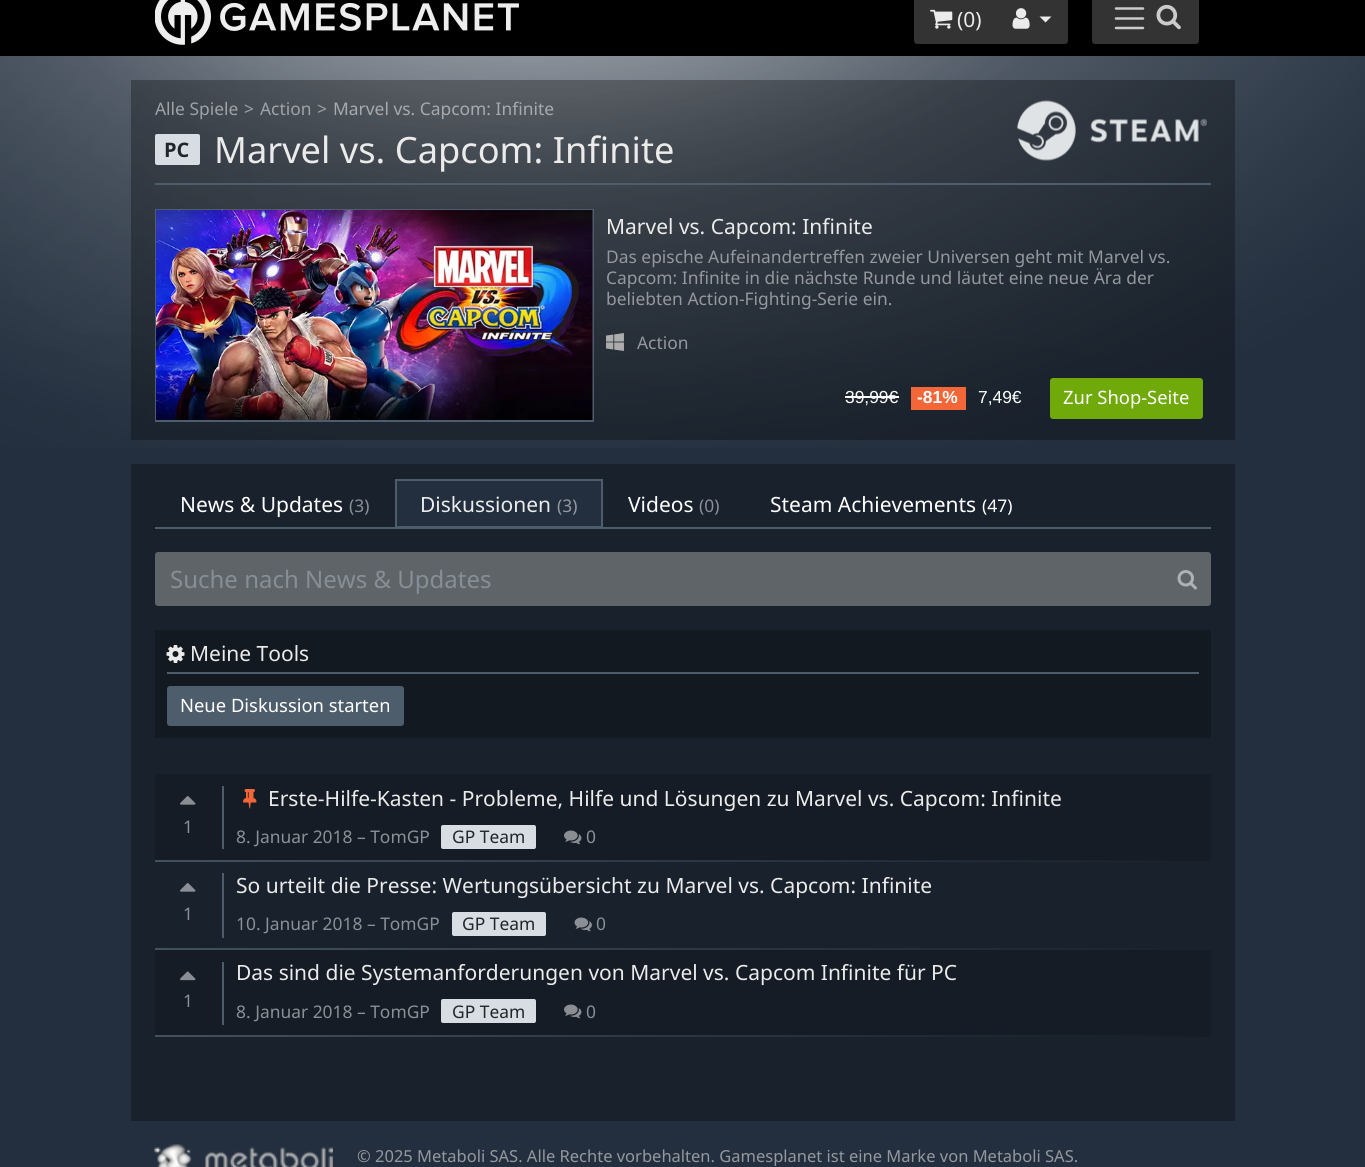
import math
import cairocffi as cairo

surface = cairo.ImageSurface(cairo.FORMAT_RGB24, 1365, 1167)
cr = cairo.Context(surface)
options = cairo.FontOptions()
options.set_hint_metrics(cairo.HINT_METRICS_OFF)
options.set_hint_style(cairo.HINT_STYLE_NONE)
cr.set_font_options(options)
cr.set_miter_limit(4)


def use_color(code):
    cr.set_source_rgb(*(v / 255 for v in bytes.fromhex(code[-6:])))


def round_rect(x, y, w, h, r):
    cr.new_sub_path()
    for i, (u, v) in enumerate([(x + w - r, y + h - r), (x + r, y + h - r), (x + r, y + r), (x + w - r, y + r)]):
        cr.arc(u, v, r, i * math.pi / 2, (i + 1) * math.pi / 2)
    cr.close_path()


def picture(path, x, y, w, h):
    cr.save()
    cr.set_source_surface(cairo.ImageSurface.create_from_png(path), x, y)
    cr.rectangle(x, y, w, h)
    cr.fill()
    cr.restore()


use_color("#232f3e")
cr.paint()
picture("img1.png", 0, 56, 1365, 392)
use_color("#000000")
cr.rectangle(0, 0, 1365, 56)
cr.fill()
picture("img2.png", 155, 0, 364, 45)
use_color("#333333")
cr.new_path()
cr.move_to(917, -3)
cr.line_to(998, -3)
cr.line_to(998, 44)
cr.line_to(917, 44)
cr.curve_to(915.5, 44, 914, 42.5, 914, 41)
cr.line_to(914, 0)
cr.curve_to(914, -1.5, 915.5, -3, 917, -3)
cr.close_path()
cr.fill()
picture("img3.png", 930, 9, 23, 20)
cr.select_font_face("Noto Sans")
cr.set_font_size(21)
use_color("#ebebeb")
cr.move_to(957, 27)
cr.show_text("(0)")
use_color("#333333")
cr.new_path()
cr.move_to(996, -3)
cr.line_to(1065, -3)
cr.curve_to(1066.5, -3, 1068, -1.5, 1068, 0)
cr.line_to(1068, 41)
cr.curve_to(1068, 42.5, 1066.5, 44, 1065, 44)
cr.line_to(996, 44)
cr.close_path()
cr.fill()
picture("img4.png", 1012, 8, 18, 21)
use_color("#ebebeb")
cr.new_path()
cr.move_to(1039.5, 16.5)
cr.line_to(1051.5, 16.5)
cr.line_to(1045.5, 22.5)
cr.close_path()
cr.fill()
use_color("#333333")
round_rect(1092, -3, 107, 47, 3)
cr.fill()
cr.new_path()
cr.move_to(1116, 8.5)
cr.line_to(1143, 8.5)
cr.move_to(1116, 18.5)
cr.line_to(1143, 18.5)
cr.move_to(1116, 28)
cr.line_to(1143, 28)
use_color("#cccccc")
cr.set_line_width(2.5)
cr.set_line_cap(cairo.LINE_CAP_ROUND)
cr.stroke()
picture("img5.png", 1156, 4, 25, 26)
cr.set_source_rgba(0, 0, 0, 0.3)
cr.rectangle(131, 80, 1104, 360)
cr.fill()
cr.set_font_size(17.4)
use_color("#9fa2a6")
cr.move_to(155, 115)
cr.show_text("Alle Spiele")
cr.move_to(244, 115)
cr.show_text(">")
cr.move_to(260, 115)
cr.show_text("Action")
cr.move_to(317, 115)
cr.show_text(">")
use_color("#a7aaad")
cr.move_to(333, 115)
cr.show_text("Marvel vs. Capcom: Infinite")
use_color("#d7dde2")
round_rect(155, 134, 45, 31, 2)
cr.fill()
cr.select_font_face("Noto Sans", cairo.FONT_SLANT_NORMAL, cairo.FONT_WEIGHT_BOLD)
cr.set_font_size(20)
use_color("#212529")
cr.move_to(164, 157)
cr.show_text("PC")
use_color("#4e5d6c")
cr.rectangle(155, 183, 1056, 2)
cr.fill()
cr.select_font_face("Noto Sans")
cr.set_font_size(36.25)
use_color("#ebebeb")
cr.move_to(214, 163)
cr.show_text("Marvel vs. Capcom: Infinite")
picture("img6.png", 1017, 100, 190, 61)
cr.rectangle(156, 210, 437, 211)
use_color("#4e5d6c")
cr.set_line_width(2)
cr.set_line_cap(cairo.LINE_CAP_BUTT)
cr.stroke()
picture("img7.png", 156, 210, 437, 210)
cr.set_font_size(21)
use_color("#ebebeb")
cr.move_to(606, 234)
cr.show_text("Marvel vs. Capcom: Infinite")
cr.set_font_size(17.4)
use_color("#95989d")
cr.move_to(606, 263)
cr.show_text("Das epische Aufeinandertreffen zweier Universen geht mit Marvel vs.")
cr.move_to(606, 284)
cr.show_text("Capcom: Infinite in die nächste Runde und läutet eine neue Ära der")
cr.move_to(606, 305)
cr.show_text("beliebten Action-Fighting-Serie ein.")
picture("img8.png", 606, 333, 18, 18)
cr.move_to(637, 349)
cr.show_text("Action")
cr.select_font_face("Liberation Sans")
use_color("#ffffff")
cr.move_to(845, 403)
cr.show_text("39,99€")
cr.rectangle(845, 396, 54, 2)
cr.fill()
use_color("#f26638")
cr.rectangle(911, 387, 55, 23)
cr.fill()
cr.select_font_face("Liberation Sans", cairo.FONT_SLANT_NORMAL, cairo.FONT_WEIGHT_BOLD)
use_color("#ffffff")
cr.move_to(917, 403)
cr.show_text("-81%")
cr.select_font_face("Liberation Sans")
cr.move_to(978, 403)
cr.show_text("7,49€")
use_color("#6faa0a")
round_rect(1051, 379, 151, 39, 2)
cr.fill_preserve()
cr.stroke()
cr.select_font_face("Noto Sans")
cr.set_font_size(18.4)
use_color("#ffffff")
cr.move_to(1063, 404)
cr.show_text("Zur Shop-Seite")
use_color("#19212c")
cr.rectangle(131, 464, 1104, 657)
cr.fill()
use_color("#4e5d6c")
cr.rectangle(155, 527, 1056, 2)
cr.fill()
cr.set_font_size(21)
use_color("#ffffff")
cr.move_to(180, 512)
cr.show_text("News & Updates")
cr.set_font_size(17.4)
use_color("#8c9096")
cr.move_to(349, 512)
cr.show_text("(3)")
use_color("#232f3e")
cr.rectangle(397, 481, 204, 45)
cr.fill()
cr.save()
cr.rectangle(155, 479, 1056, 48)
cr.clip()
cr.rectangle(396, 480, 206, 47)
use_color("#4e5d6c")
cr.stroke()
cr.restore()
cr.set_font_size(21)
use_color("#ebebeb")
cr.move_to(420, 512)
cr.show_text("Diskussionen")
cr.set_font_size(17.4)
use_color("#95989d")
cr.move_to(557, 512)
cr.show_text("(3)")
cr.set_font_size(21)
use_color("#ffffff")
cr.move_to(628, 512)
cr.show_text("Videos")
cr.set_font_size(17.4)
use_color("#8c9096")
cr.move_to(699, 512)
cr.show_text("(0)")
cr.set_font_size(21)
use_color("#ffffff")
cr.move_to(770, 512)
cr.show_text("Steam Achievements")
cr.set_font_size(17.4)
cr.move_to(982, 512)
cr.show_text("(47)")
use_color("#5f6468")
cr.new_path()
cr.move_to(158, 553)
cr.line_to(1165, 553)
cr.line_to(1165, 605)
cr.line_to(158, 605)
cr.curve_to(157, 605, 156, 604, 156, 603)
cr.line_to(156, 555)
cr.curve_to(156, 554, 157, 553, 158, 553)
cr.close_path()
cr.fill_preserve()
cr.stroke()
cr.set_font_size(24)
use_color("#868e96")
cr.move_to(170, 588)
cr.show_text("Suche nach News & Updates")
use_color("#5f6468")
cr.new_path()
cr.move_to(1165, 553)
cr.line_to(1208, 553)
cr.curve_to(1209, 553, 1210, 554, 1210, 555)
cr.line_to(1210, 603)
cr.curve_to(1210, 604, 1209, 605, 1208, 605)
cr.line_to(1165, 605)
cr.close_path()
cr.fill_preserve()
cr.stroke()
picture("img9.png", 1177, 570, 20, 20)
use_color("#131921")
cr.rectangle(155, 630, 1056, 108)
cr.fill()
use_color("#4e5d6c")
cr.rectangle(167, 672, 1032, 2)
cr.fill()
picture("img10.png", 166, 645, 19, 18)
cr.set_font_size(21)
use_color("#ebebeb")
cr.move_to(190, 661)
cr.show_text("Meine Tools")
use_color("#4e5d6c")
round_rect(168, 687, 235, 38, 2)
cr.fill_preserve()
cr.stroke()
cr.set_font_size(18.4)
use_color("#ffffff")
cr.move_to(180, 712)
cr.show_text("Neue Diskussion starten")
use_color("#151c25")
cr.rectangle(155, 774, 1056, 87)
cr.fill()
picture("img11.png", 180, 796, 16, 9)
cr.set_font_size(17.4)
use_color("#8c9096")
cr.move_to(183, 833)
cr.show_text("1")
use_color("#4e5d6c")
cr.rectangle(222, 786, 2, 63)
cr.fill()
picture("img12.png", 243, 789, 14, 20)
cr.set_font_size(21)
use_color("#ebebeb")
cr.move_to(268, 806)
cr.show_text("Erste-Hilfe-Kasten - Probleme, Hilfe und Lösungen zu Marvel vs. Capcom: Infinite")
cr.set_font_size(17.4)
use_color("#8c9096")
cr.move_to(236, 843)
cr.show_text("8. Januar 2018 – TomGP")
use_color("#d7dde2")
round_rect(441, 825, 95, 24, 2)
cr.fill()
use_color("#212529")
cr.move_to(452, 843)
cr.show_text("GP Team")
picture("img13.png", 564, 830, 18, 15)
use_color("#8c9096")
cr.move_to(586, 843)
cr.show_text("0")
gradient = cairo.LinearGradient(155, 860, 1211, 860)
gradient.add_color_stop_rgba(0, 0.306, 0.365, 0.424, 0.8)
gradient.add_color_stop_rgba(1, 0.306, 0.365, 0.424, 0)
cr.set_source(gradient)
cr.rectangle(155, 860, 1013, 2)
cr.fill()
picture("img14.png", 180, 883, 16, 9)
use_color("#8c9096")
cr.move_to(183, 920)
cr.show_text("1")
use_color("#4e5d6c")
cr.rectangle(222, 873, 2, 65)
cr.fill()
cr.set_font_size(21)
use_color("#ebebeb")
cr.move_to(236, 893)
cr.show_text("So urteilt die Presse: Wertungsübersicht zu Marvel vs. Capcom: Infinite")
cr.set_font_size(17.4)
use_color("#8c9096")
cr.move_to(236, 930)
cr.show_text("10. Januar 2018 – TomGP")
use_color("#d7dde2")
round_rect(452, 912, 94, 24, 2)
cr.fill()
use_color("#212529")
cr.move_to(462, 930)
cr.show_text("GP Team")
picture("img15.png", 574, 917, 18, 15)
use_color("#8c9096")
cr.move_to(596, 930)
cr.show_text("0")
gradient = cairo.LinearGradient(155, 949, 1211, 949)
gradient.add_color_stop_rgba(0, 0.263, 0.318, 0.373, 1)
gradient.add_color_stop_rgba(1, 0.098, 0.129, 0.173, 1)
cr.set_source(gradient)
cr.rectangle(155, 948, 1004, 2)
cr.fill()
use_color("#151c25")
cr.rectangle(155, 950, 1056, 85)
cr.fill()
picture("img16.png", 180, 971, 16, 10)
use_color("#8c9096")
cr.move_to(183, 1007)
cr.show_text("1")
use_color("#4e5d6c")
cr.rectangle(222, 962, 2, 63)
cr.fill()
cr.set_font_size(21)
use_color("#ebebeb")
cr.move_to(236, 980)
cr.show_text("Das sind die Systemanforderungen von Marvel vs. Capcom Infinite für PC")
cr.set_font_size(17.4)
use_color("#8c9096")
cr.move_to(236, 1018)
cr.show_text("8. Januar 2018 – TomGP")
use_color("#d7dde2")
round_rect(441, 999, 95, 24, 2)
cr.fill()
use_color("#212529")
cr.move_to(452, 1018)
cr.show_text("GP Team")
picture("img13.png", 564, 1004, 18, 15)
use_color("#8c9096")
cr.move_to(586, 1018)
cr.show_text("0")
gradient = cairo.LinearGradient(155, 1036, 1211, 1036)
gradient.add_color_stop_rgba(0, 0.263, 0.314, 0.369, 1)
gradient.add_color_stop_rgba(1, 0.082, 0.11, 0.145, 1)
cr.set_source(gradient)
cr.rectangle(155, 1035, 1056, 2)
cr.fill()
picture("img17.png", 154, 1144, 179, 23)
cr.set_font_size(16.5)
use_color("#95989d")
cr.move_to(357, 1162)
cr.show_text("© 2025 Metaboli SAS. Alle Rechte vorbehalten. Gamesplanet ist eine Marke von Metaboli SAS.")
surface.write_to_png("result.png")
